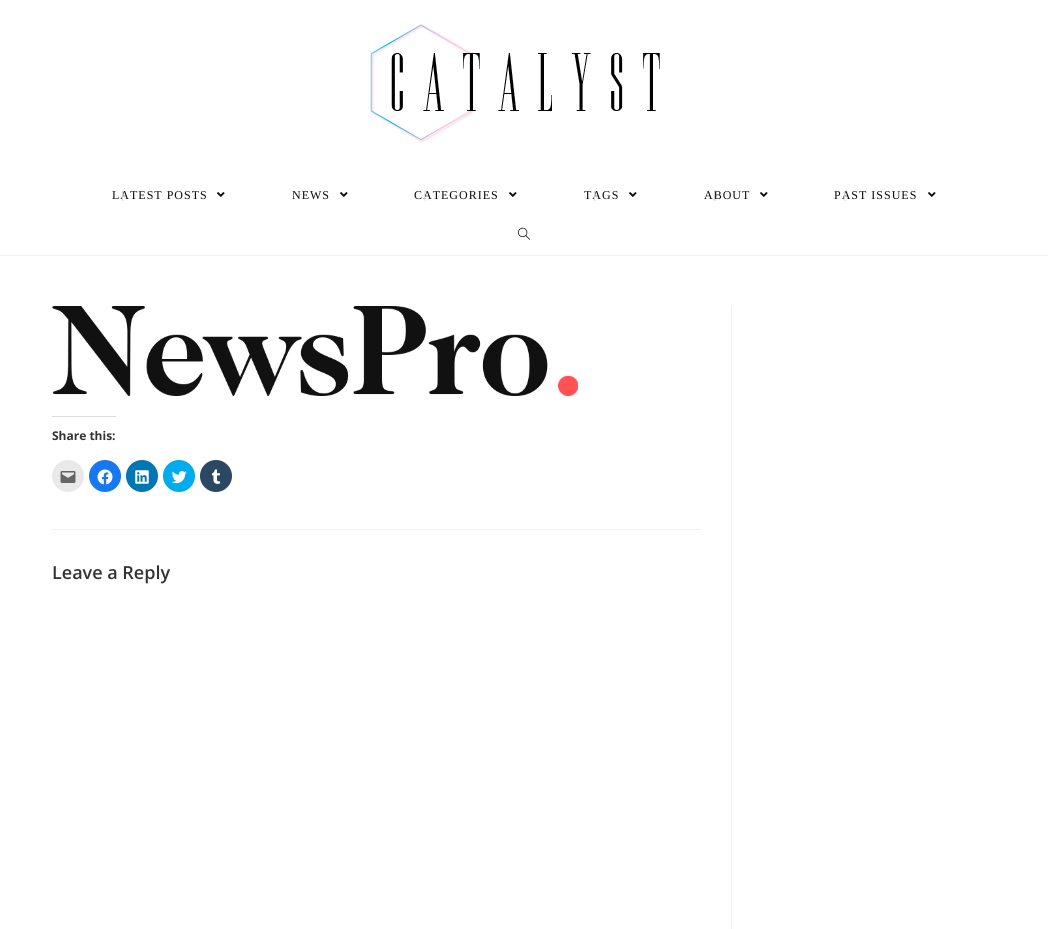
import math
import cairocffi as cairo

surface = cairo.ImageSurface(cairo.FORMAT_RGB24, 1048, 929)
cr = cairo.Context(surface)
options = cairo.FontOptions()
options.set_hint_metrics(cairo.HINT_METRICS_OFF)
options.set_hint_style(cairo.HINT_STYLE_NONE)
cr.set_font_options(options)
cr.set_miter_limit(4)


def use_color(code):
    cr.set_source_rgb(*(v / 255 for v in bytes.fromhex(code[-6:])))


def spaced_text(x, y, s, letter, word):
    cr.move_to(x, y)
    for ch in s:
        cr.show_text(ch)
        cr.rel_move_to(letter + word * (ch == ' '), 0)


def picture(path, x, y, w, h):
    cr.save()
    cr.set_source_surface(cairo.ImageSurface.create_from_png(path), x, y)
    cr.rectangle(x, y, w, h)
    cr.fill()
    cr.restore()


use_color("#ffffff")
cr.paint()
use_color("#f1f1f1")
cr.rectangle(0, 255, 1048, 1)
cr.fill()
picture("img1.png", 370, 24, 290, 119)
cr.select_font_face("Liberation Serif")
cr.set_font_size(12)
use_color("#0a0a0a")
spaced_text(112, 199, "LATEST POSTS", 1, 0)
use_color("#dbdbdb")
spaced_text(121, 199, "[", 1, 0)
picture("img2.png", 217, 192, 8, 5)
use_color("#0a0a0a")
spaced_text(292, 199, "NEWS", 1, 0)
picture("img2.png", 340, 192, 8, 5)
spaced_text(414, 199, "CATEGORIES", 1, 0)
use_color("#e2e2e2")
spaced_text(423, 199, "[", 1, 0)
picture("img2.png", 509, 192, 8, 5)
use_color("#0a0a0a")
spaced_text(584, 199, "TAGS", 1, 0)
use_color("#dbdbdb")
spaced_text(593, 199, "[", 1, 0)
picture("img2.png", 629, 192, 8, 5)
use_color("#0a0a0a")
spaced_text(704, 199, "ABOUT", 1, 0)
use_color("#cbcbcb")
spaced_text(713, 199, "[", 1, 0)
picture("img2.png", 760, 192, 8, 5)
use_color("#0a0a0a")
spaced_text(834, 199, "PAST ISSUES", 1, 0)
use_color("#d4d4d4")
spaced_text(843, 199, "[", 1, 0)
picture("img2.png", 928, 192, 8, 5)
picture("img3.png", 518, 227, 12, 13)
use_color("#f1f1f1")
cr.rectangle(731, 306, 1, 623)
cr.fill()
picture("img4.png", 52, 306, 526, 90)
use_color("#dddddd")
cr.rectangle(52, 416, 64, 1)
cr.fill()
cr.select_font_face("Open Sans", cairo.FONT_SLANT_NORMAL, cairo.FONT_WEIGHT_BOLD)
use_color("#333333")
cr.move_to(52, 440)
cr.show_text("Share this:")
use_color("#e9e9e9")
cr.new_path()
cr.arc(68, 476, 16, 0, 2 * math.pi)
cr.fill()
picture("img5.png", 60, 471, 16, 12)
use_color("#1877f2")
cr.arc(105, 476, 16, 0, 2 * math.pi)
cr.fill()
picture("img6.png", 97, 469, 16, 16)
use_color("#0077b5")
cr.arc(142, 476, 16, 0, 2 * math.pi)
cr.fill()
picture("img7.png", 135, 470, 14, 14)
use_color("#00acee")
cr.arc(179, 476, 16, 0, 2 * math.pi)
cr.fill()
picture("img8.png", 171, 471, 16, 13)
use_color("#2c4762")
cr.arc(216, 476, 16, 0, 2 * math.pi)
cr.fill()
picture("img9.png", 211, 469, 10, 15)
use_color("#f1f1f1")
cr.rectangle(52, 529, 649, 1)
cr.fill()
cr.select_font_face("Open Sans SemiBold")
cr.set_font_size(18)
use_color("#333333")
cr.move_to(52, 579)
cr.show_text("Leave a Reply")
surface.write_to_png("result.png")
